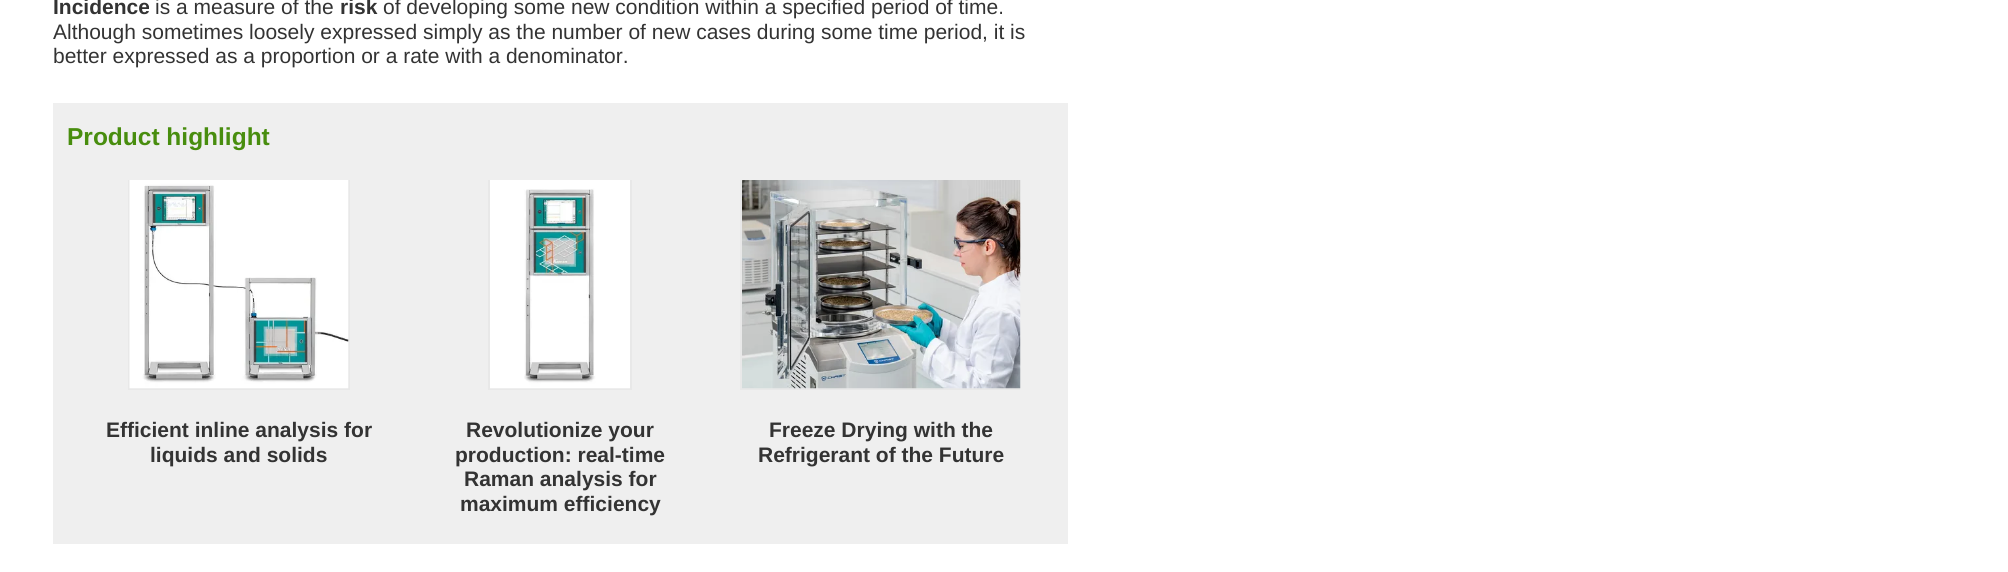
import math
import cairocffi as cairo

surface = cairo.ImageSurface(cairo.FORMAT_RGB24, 2008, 572)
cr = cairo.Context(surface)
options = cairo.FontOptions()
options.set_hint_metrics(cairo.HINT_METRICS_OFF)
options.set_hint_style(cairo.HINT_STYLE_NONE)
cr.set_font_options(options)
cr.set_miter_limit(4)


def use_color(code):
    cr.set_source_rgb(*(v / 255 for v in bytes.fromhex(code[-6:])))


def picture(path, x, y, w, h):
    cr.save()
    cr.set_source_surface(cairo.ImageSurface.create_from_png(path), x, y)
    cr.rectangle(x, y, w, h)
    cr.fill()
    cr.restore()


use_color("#ffffff")
cr.paint()
cr.select_font_face("Liberation Sans", cairo.FONT_SLANT_NORMAL, cairo.FONT_WEIGHT_BOLD)
cr.set_font_size(21)
use_color("#333333")
cr.move_to(53, 14)
cr.show_text("Incidence")
cr.select_font_face("Liberation Sans")
cr.move_to(155, 14)
cr.show_text("is a measure of the")
cr.select_font_face("Liberation Sans", cairo.FONT_SLANT_NORMAL, cairo.FONT_WEIGHT_BOLD)
cr.move_to(340, 14)
cr.show_text("risk")
cr.select_font_face("Liberation Sans")
cr.move_to(383, 14)
cr.show_text("of developing some new condition within a specified period of time.")
cr.move_to(53, 39)
cr.show_text("Although sometimes loosely expressed simply as the number of new cases during some time period, it is")
cr.move_to(53, 63)
cr.show_text("better expressed as a proportion or a rate with a denominator.")
use_color("#efefef")
cr.rectangle(53, 103, 1015, 441)
cr.fill()
cr.select_font_face("Liberation Sans", cairo.FONT_SLANT_NORMAL, cairo.FONT_WEIGHT_BOLD)
cr.set_font_size(24.5)
use_color("#488d0e")
cr.move_to(67, 145)
cr.show_text("Product highlight")
cr.save()
cr.rectangle(100, 180, 280, 210)
cr.clip()
cr.rectangle(129, 178, 220, 211)
use_color("#e8e8e8")
cr.stroke()
cr.restore()
picture("img1.png", 129, 180, 220, 209)
cr.set_font_size(21)
use_color("#333333")
cr.move_to(106, 437)
cr.show_text("Efficient inline analysis for")
cr.move_to(150, 462)
cr.show_text("liquids and solids")
cr.save()
cr.rectangle(420, 180, 280, 210)
cr.clip()
cr.rectangle(489, 178, 142, 211)
use_color("#e8e8e8")
cr.stroke()
cr.restore()
picture("img2.png", 490, 180, 140, 209)
cr.move_to(466, 437)
cr.show_text("Revolutionize your")
cr.move_to(455, 462)
cr.show_text("production: real-time")
cr.move_to(464, 486)
cr.show_text("Raman analysis for")
cr.move_to(460, 511)
cr.show_text("maximum efficiency")
cr.save()
cr.rectangle(740, 180, 280, 210)
cr.clip()
cr.rectangle(741, 178, 284, 211)
use_color("#e8e8e8")
cr.stroke()
cr.restore()
picture("img3.png", 742, 180, 279, 209)
cr.move_to(769, 437)
cr.show_text("Freeze Drying with the")
cr.move_to(758, 462)
cr.show_text("Refrigerant of the Future")
surface.write_to_png("result.png")
